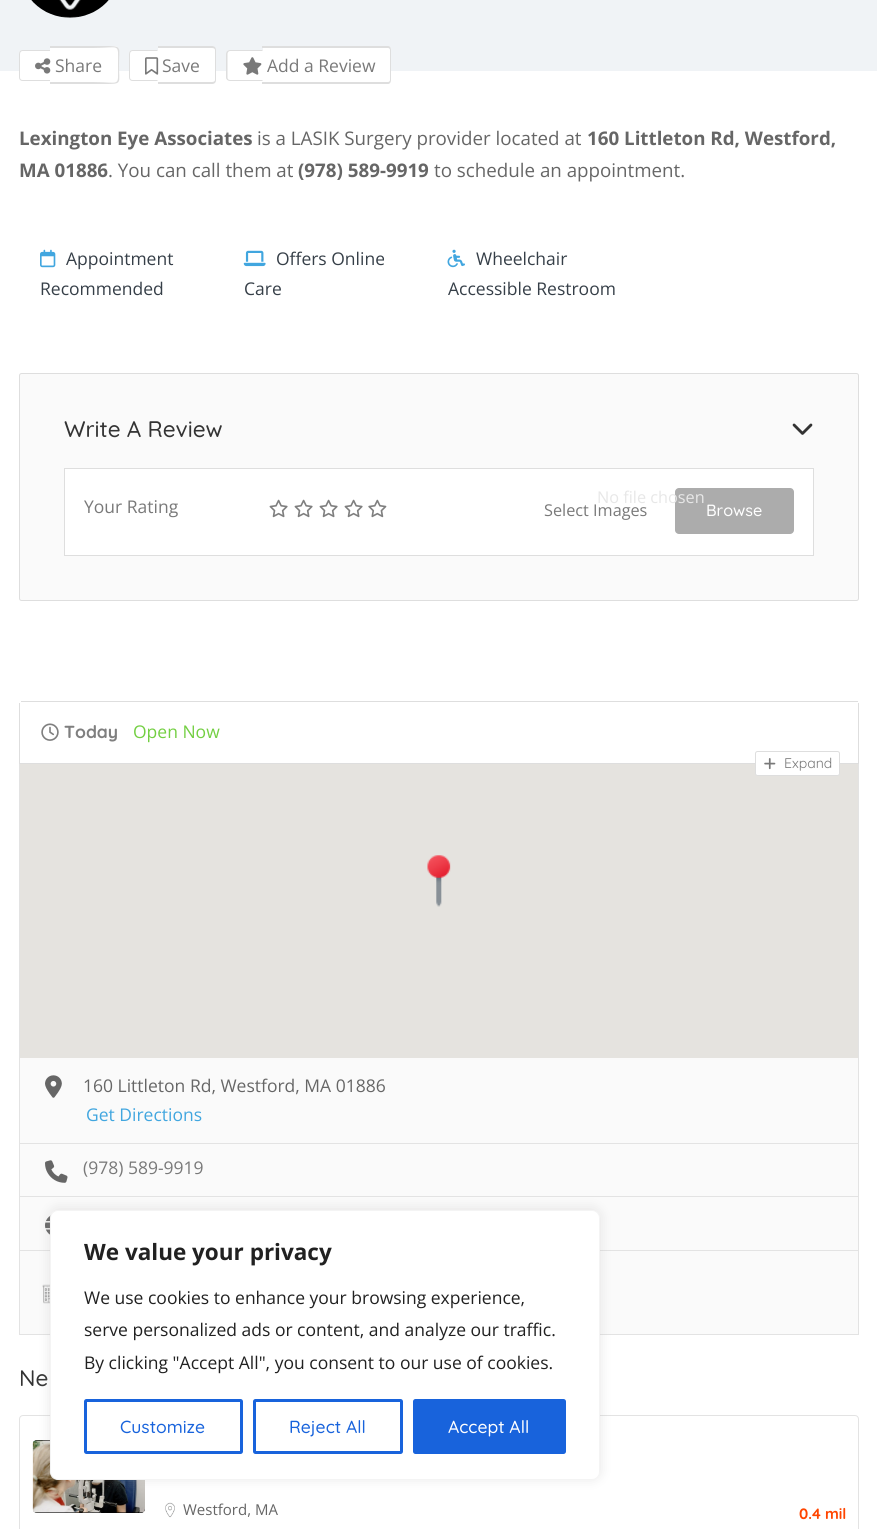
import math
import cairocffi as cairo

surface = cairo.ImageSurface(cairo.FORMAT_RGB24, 877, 1529)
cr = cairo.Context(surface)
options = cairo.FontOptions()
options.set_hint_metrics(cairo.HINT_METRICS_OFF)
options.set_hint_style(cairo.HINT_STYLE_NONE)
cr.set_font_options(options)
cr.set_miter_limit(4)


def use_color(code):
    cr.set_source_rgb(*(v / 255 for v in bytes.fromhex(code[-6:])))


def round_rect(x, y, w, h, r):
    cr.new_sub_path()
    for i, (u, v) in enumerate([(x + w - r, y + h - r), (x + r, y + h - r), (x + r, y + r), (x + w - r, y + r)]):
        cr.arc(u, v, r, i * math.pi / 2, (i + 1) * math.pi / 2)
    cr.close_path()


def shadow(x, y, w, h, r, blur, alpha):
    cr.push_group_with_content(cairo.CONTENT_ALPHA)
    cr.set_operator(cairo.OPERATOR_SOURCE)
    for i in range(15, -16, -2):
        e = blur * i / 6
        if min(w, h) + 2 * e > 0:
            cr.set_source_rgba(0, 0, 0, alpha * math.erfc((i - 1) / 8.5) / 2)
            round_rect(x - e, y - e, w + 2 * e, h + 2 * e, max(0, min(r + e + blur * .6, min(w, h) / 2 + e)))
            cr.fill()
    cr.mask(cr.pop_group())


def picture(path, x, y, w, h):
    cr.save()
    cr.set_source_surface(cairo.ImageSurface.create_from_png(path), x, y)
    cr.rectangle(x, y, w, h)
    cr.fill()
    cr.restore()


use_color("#ffffff")
cr.paint()
use_color("#f0f3f6")
cr.rectangle(0, 0, 877, 71)
cr.fill()
picture("img1.png", 31, 0, 78, 18)
use_color("#ffffff")
cr.new_path()
cr.move_to(23, 50)
cr.line_to(50, 50)
cr.line_to(50, 81)
cr.line_to(23, 81)
cr.curve_to(21, 81, 19, 79, 19, 77)
cr.line_to(19, 54)
cr.curve_to(19, 52, 21, 50, 23, 50)
cr.close_path()
cr.fill()
use_color("#dedede")
cr.set_fill_rule(cairo.FILL_RULE_EVEN_ODD)
cr.new_path()
cr.move_to(22.5, 50)
cr.line_to(50, 50)
cr.line_to(50, 81)
cr.line_to(22.5, 81)
cr.curve_to(20.5, 81, 19, 79.5, 19, 77.5)
cr.line_to(19, 54)
cr.curve_to(19, 51.5, 20.5, 50, 22.5, 50)
cr.close_path()
cr.move_to(22.5, 51)
cr.line_to(50, 51)
cr.line_to(50, 80)
cr.line_to(22.5, 80)
cr.curve_to(21, 80, 20, 79, 20, 77.5)
cr.line_to(20, 54)
cr.curve_to(20, 52.5, 21, 51, 22.5, 51)
cr.close_path()
cr.fill()
use_color("#ffffff")
cr.new_path()
cr.move_to(50, 46)
cr.line_to(115, 46)
cr.curve_to(117, 46, 119, 48, 119, 50)
cr.line_to(119, 80)
cr.curve_to(119, 82, 117, 84, 115, 84)
cr.line_to(50, 84)
cr.close_path()
cr.fill()
use_color("#dedede")
cr.new_path()
cr.move_to(50, 46)
cr.line_to(104, 46)
cr.curve_to(123, 46, 119, 46, 119, 65)
cr.curve_to(119, 84, 123, 84, 104, 84)
cr.line_to(50, 84)
cr.close_path()
cr.move_to(50, 48)
cr.line_to(93, 48)
cr.curve_to(121, 48, 118, 42, 118, 65)
cr.curve_to(118, 88, 121, 82, 93, 82)
cr.line_to(50, 82)
cr.close_path()
cr.fill()
picture("img2.png", 35, 58, 16, 16)
cr.select_font_face("Open Sans")
cr.set_font_size(17.5)
use_color("#797979")
cr.move_to(55, 72)
cr.show_text("Share")
use_color("#ffffff")
cr.new_path()
cr.move_to(133, 50)
cr.line_to(158, 50)
cr.line_to(158, 81)
cr.line_to(133, 81)
cr.curve_to(131, 81, 129, 79, 129, 77)
cr.line_to(129, 54)
cr.curve_to(129, 52, 131, 50, 133, 50)
cr.close_path()
cr.fill()
use_color("#dedede")
cr.new_path()
cr.move_to(132.5, 50)
cr.line_to(157.5, 50)
cr.line_to(157.5, 81)
cr.line_to(132.5, 81)
cr.curve_to(130.5, 81, 129, 79.5, 129, 77.5)
cr.line_to(129, 54)
cr.curve_to(129, 51.5, 130.5, 50, 132.5, 50)
cr.close_path()
cr.move_to(132.5, 51)
cr.line_to(157.5, 51)
cr.line_to(157.5, 80)
cr.line_to(132.5, 80)
cr.curve_to(131, 80, 130, 79, 130, 77.5)
cr.line_to(130, 54)
cr.curve_to(130, 52.5, 131, 51, 132.5, 51)
cr.close_path()
cr.fill()
use_color("#ffffff")
cr.new_path()
cr.move_to(158, 46)
cr.line_to(212, 46)
cr.curve_to(214, 46, 216, 48, 216, 50)
cr.line_to(216, 80)
cr.curve_to(216, 82, 214, 84, 212, 84)
cr.line_to(158, 84)
cr.close_path()
cr.fill()
use_color("#dedede")
cr.new_path()
cr.move_to(158, 46)
cr.line_to(212, 46)
cr.curve_to(215, 46, 216, 48, 216, 50)
cr.line_to(216, 80)
cr.curve_to(216, 82, 215, 84, 212, 84)
cr.line_to(158, 84)
cr.close_path()
cr.move_to(158, 48)
cr.line_to(212, 48)
cr.curve_to(214, 48, 215, 49, 215, 50)
cr.line_to(215, 80)
cr.curve_to(215, 81, 214, 82, 212, 82)
cr.line_to(158, 82)
cr.close_path()
cr.fill()
picture("img3.png", 145, 57, 14, 18)
use_color("#797979")
cr.move_to(162, 72)
cr.show_text("Save")
use_color("#ffffff")
cr.new_path()
cr.move_to(230, 50)
cr.line_to(263, 50)
cr.line_to(263, 81)
cr.line_to(230, 81)
cr.curve_to(228, 81, 226, 79, 226, 77)
cr.line_to(226, 54)
cr.curve_to(226, 52, 228, 50, 230, 50)
cr.close_path()
cr.fill()
use_color("#dedede")
cr.new_path()
cr.move_to(230, 50)
cr.line_to(262.5, 50)
cr.line_to(262.5, 81)
cr.line_to(230, 81)
cr.curve_to(228, 81, 226, 79.5, 226, 77.5)
cr.line_to(226, 54)
cr.curve_to(226, 51.5, 228, 50, 230, 50)
cr.close_path()
cr.move_to(230, 51)
cr.line_to(262.5, 51)
cr.line_to(262.5, 80)
cr.line_to(230, 80)
cr.curve_to(228.5, 80, 227.5, 79, 227.5, 77.5)
cr.line_to(227.5, 54)
cr.curve_to(227.5, 52.5, 228.5, 51, 230, 51)
cr.close_path()
cr.fill()
use_color("#ffffff")
cr.new_path()
cr.move_to(263, 46)
cr.line_to(387, 46)
cr.curve_to(389, 46, 391, 48, 391, 50)
cr.line_to(391, 80)
cr.curve_to(391, 82, 389, 84, 387, 84)
cr.line_to(263, 84)
cr.close_path()
cr.fill()
use_color("#dedede")
cr.new_path()
cr.move_to(262, 46)
cr.line_to(388, 46)
cr.curve_to(390, 46, 391, 48, 391, 50)
cr.line_to(391, 80)
cr.curve_to(391, 82, 390, 84, 388, 84)
cr.line_to(262, 84)
cr.close_path()
cr.move_to(262, 48)
cr.line_to(388, 48)
cr.curve_to(389, 48, 390, 49, 390, 50)
cr.line_to(390, 80)
cr.curve_to(390, 81, 389, 82, 388, 82)
cr.line_to(262, 82)
cr.close_path()
cr.fill()
picture("img4.png", 243, 57, 19, 18)
use_color("#797979")
cr.move_to(267, 72)
cr.show_text("Add a Review")
cr.select_font_face("Open Sans", cairo.FONT_SLANT_NORMAL, cairo.FONT_WEIGHT_BOLD)
cr.set_font_size(18.75)
use_color("#666666")
cr.move_to(19, 145)
cr.show_text("Lexington Eye Associates")
cr.select_font_face("Open Sans")
cr.move_to(257, 145)
cr.show_text("is a LASIK Surgery provider located at")
cr.select_font_face("Open Sans", cairo.FONT_SLANT_NORMAL, cairo.FONT_WEIGHT_BOLD)
cr.move_to(587, 145)
cr.show_text("160 Littleton Rd, Westford,")
cr.move_to(19, 177)
cr.show_text("MA 01886")
cr.select_font_face("Open Sans")
cr.move_to(108, 177)
cr.show_text(". You can call them at")
cr.select_font_face("Open Sans", cairo.FONT_SLANT_NORMAL, cairo.FONT_WEIGHT_BOLD)
cr.move_to(298, 177)
cr.show_text("(978) 589-9919")
cr.select_font_face("Open Sans")
cr.move_to(434, 177)
cr.show_text("to schedule an appointment.")
picture("img5.png", 40, 249, 16, 19)
cr.set_font_size(17.5)
use_color("#363f48")
cr.move_to(66, 265)
cr.show_text("Appointment")
cr.move_to(40, 295)
cr.show_text("Recommended")
picture("img6.png", 243, 250, 23, 17)
cr.move_to(276, 265)
cr.show_text("Offers Online")
cr.move_to(244, 295)
cr.show_text("Care")
picture("img7.png", 447, 249, 18, 19)
cr.move_to(476, 265)
cr.show_text("Wheelchair")
cr.move_to(448, 295)
cr.show_text("Accessible Restroom")
use_color("#fafafa")
round_rect(19.5, 373.5, 839, 227, 2)
cr.fill_preserve()
use_color("#dedede")
cr.set_line_width(1)
cr.stroke()
cr.select_font_face("Quicksand Medium")
cr.set_font_size(22.5)
use_color("#333333")
cr.move_to(64, 437)
cr.show_text("Write A Review")
picture("img8.png", 792, 423, 21, 12)
use_color("#ffffff")
cr.rectangle(64.5, 468.5, 749, 87)
cr.fill_preserve()
use_color("#dedede")
cr.stroke()
cr.select_font_face("Open Sans")
cr.set_font_size(17.5)
use_color("#797979")
cr.move_to(84, 513)
cr.show_text("Your Rating")
picture("img9.png", 269, 499, 19, 19)
picture("img9.png", 294, 499, 19, 19)
picture("img9.png", 319, 499, 19, 19)
picture("img9.png", 344, 499, 19, 19)
picture("img10.png", 368, 499, 19, 19)
use_color("#acacac")
round_rect(675, 488, 119, 46, 4)
cr.fill()
cr.set_font_size(16.25)
use_color("#e7e7e7")
cr.move_to(597, 503)
cr.show_text("No file chosen")
use_color("#797979")
cr.move_to(544, 516)
cr.show_text("Select Images")
cr.select_font_face("Quicksand Medium")
use_color("#ffffff")
cr.move_to(706, 516)
cr.show_text("Browse")
use_color("#dedede")
cr.rectangle(21, 701, 837, 1)
cr.fill()
cr.rectangle(858, 703, 1, 61)
cr.fill()
cr.rectangle(19, 763, 840, 1)
cr.fill()
cr.rectangle(19, 703, 1, 61)
cr.fill()
picture("img11.png", 41, 723, 18, 18)
cr.select_font_face("Quicksand", cairo.FONT_SLANT_NORMAL, cairo.FONT_WEIGHT_BOLD)
cr.set_font_size(17.5)
use_color("#7f7f7f")
cr.move_to(64, 738)
cr.show_text("Today")
cr.select_font_face("Open Sans")
use_color("#73cf42")
cr.move_to(133, 738)
cr.show_text("Open Now")
use_color("#e5e3df")
cr.rectangle(20, 764, 838, 294)
cr.fill()
use_color("#ffffff")
round_rect(755.5, 751.5, 84, 24, 2)
cr.fill_preserve()
use_color("#dedede")
cr.stroke()
picture("img12.png", 764, 758, 12, 12)
cr.select_font_face("Quicksand")
cr.set_font_size(14)
use_color("#797979")
cr.move_to(784, 768)
cr.show_text("Expand")
picture("img13.png", 427, 855, 24, 52)
use_color("#e3e3e3")
cr.rectangle(858, 764, 1, 571)
cr.fill()
cr.rectangle(19, 1250, 840, 1)
cr.fill()
cr.rectangle(19, 764, 1, 487)
cr.fill()
use_color("#fafafa")
cr.rectangle(20, 1058, 838, 85)
cr.fill()
use_color("#e3e3e3")
cr.rectangle(20, 1143, 838, 1)
cr.fill()
picture("img14.png", 45, 1075, 17, 23)
cr.select_font_face("Open Sans")
cr.set_font_size(17.5)
use_color("#666666")
cr.move_to(83, 1092)
cr.show_text("160 Littleton Rd, Westford, MA 01886")
use_color("#41a6df")
cr.move_to(86, 1121)
cr.show_text("Get Directions")
use_color("#fafafa")
cr.rectangle(20, 1144, 838, 106)
cr.fill()
use_color("#e3e3e3")
cr.rectangle(20, 1196, 838, 1)
cr.fill()
picture("img15.png", 45, 1160, 23, 23)
use_color("#797979")
cr.move_to(83, 1174)
cr.show_text("(978) 589-9919")
picture("img16.png", 45, 1215, 6, 20)
use_color("#fafafa")
cr.rectangle(20, 1251, 838, 83)
cr.fill()
use_color("#e3e3e3")
cr.rectangle(19, 1334, 840, 1)
cr.fill()
cr.rectangle(19, 1251, 1, 84)
cr.fill()
picture("img17.png", 42, 1284, 8, 20)
cr.select_font_face("Quicksand Medium")
cr.set_font_size(22.5)
use_color("#333333")
cr.move_to(19, 1386)
cr.show_text("Ne")
round_rect(19.5, 1415.5, 839, 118, 3.5)
use_color("#e3e3e3")
cr.stroke()
use_color("#000000")
round_rect(33, 1440, 112, 73, 4)
cr.fill()
picture("img18.png", 32, 1440, 113, 73)
picture("img19.png", 165, 1502, 10, 16)
cr.select_font_face("Open Sans")
cr.set_font_size(15)
use_color("#666666")
cr.move_to(183, 1515)
cr.show_text("Westford, MA")
cr.select_font_face("Quicksand", cairo.FONT_SLANT_NORMAL, cairo.FONT_WEIGHT_BOLD)
use_color("#ff4500")
cr.move_to(799, 1519)
cr.show_text("0.4 mil")
use_color("#acabab")
shadow(50, 1209, 550, 270, 8, 6, 0.3)
use_color("#ffffff")
round_rect(50.5, 1210.5, 549, 269, 7.5)
cr.fill_preserve()
use_color("#f4f4f4")
cr.stroke()
cr.select_font_face("Open Sans", cairo.FONT_SLANT_NORMAL, cairo.FONT_WEIGHT_BOLD)
cr.set_font_size(22.5)
use_color("#212121")
cr.move_to(84, 1260)
cr.show_text("We value your privacy")
cr.select_font_face("Open Sans")
cr.set_font_size(17.5)
cr.move_to(84, 1304)
cr.show_text("We use cookies to enhance your browsing experience,")
cr.move_to(84, 1336)
cr.show_text("serve personalized ads or content, and analyze our traffic.")
cr.move_to(84, 1369)
cr.show_text("By clicking \"Accept All\", you consent to our use of cookies.")
round_rect(85.5, 1400.5, 156, 52, 1)
use_color("#1863dc")
cr.set_line_width(3)
cr.stroke()
cr.select_font_face("Quicksand Medium")
cr.move_to(120, 1433)
cr.show_text("Customize")
round_rect(254.5, 1400.5, 147, 52, 1)
cr.stroke()
cr.move_to(289, 1433)
cr.show_text("Reject All")
round_rect(414.5, 1400.5, 150, 52, 1)
cr.fill_preserve()
cr.stroke()
use_color("#ffffff")
cr.move_to(448, 1433)
cr.show_text("Accept All")
surface.write_to_png("result.png")
